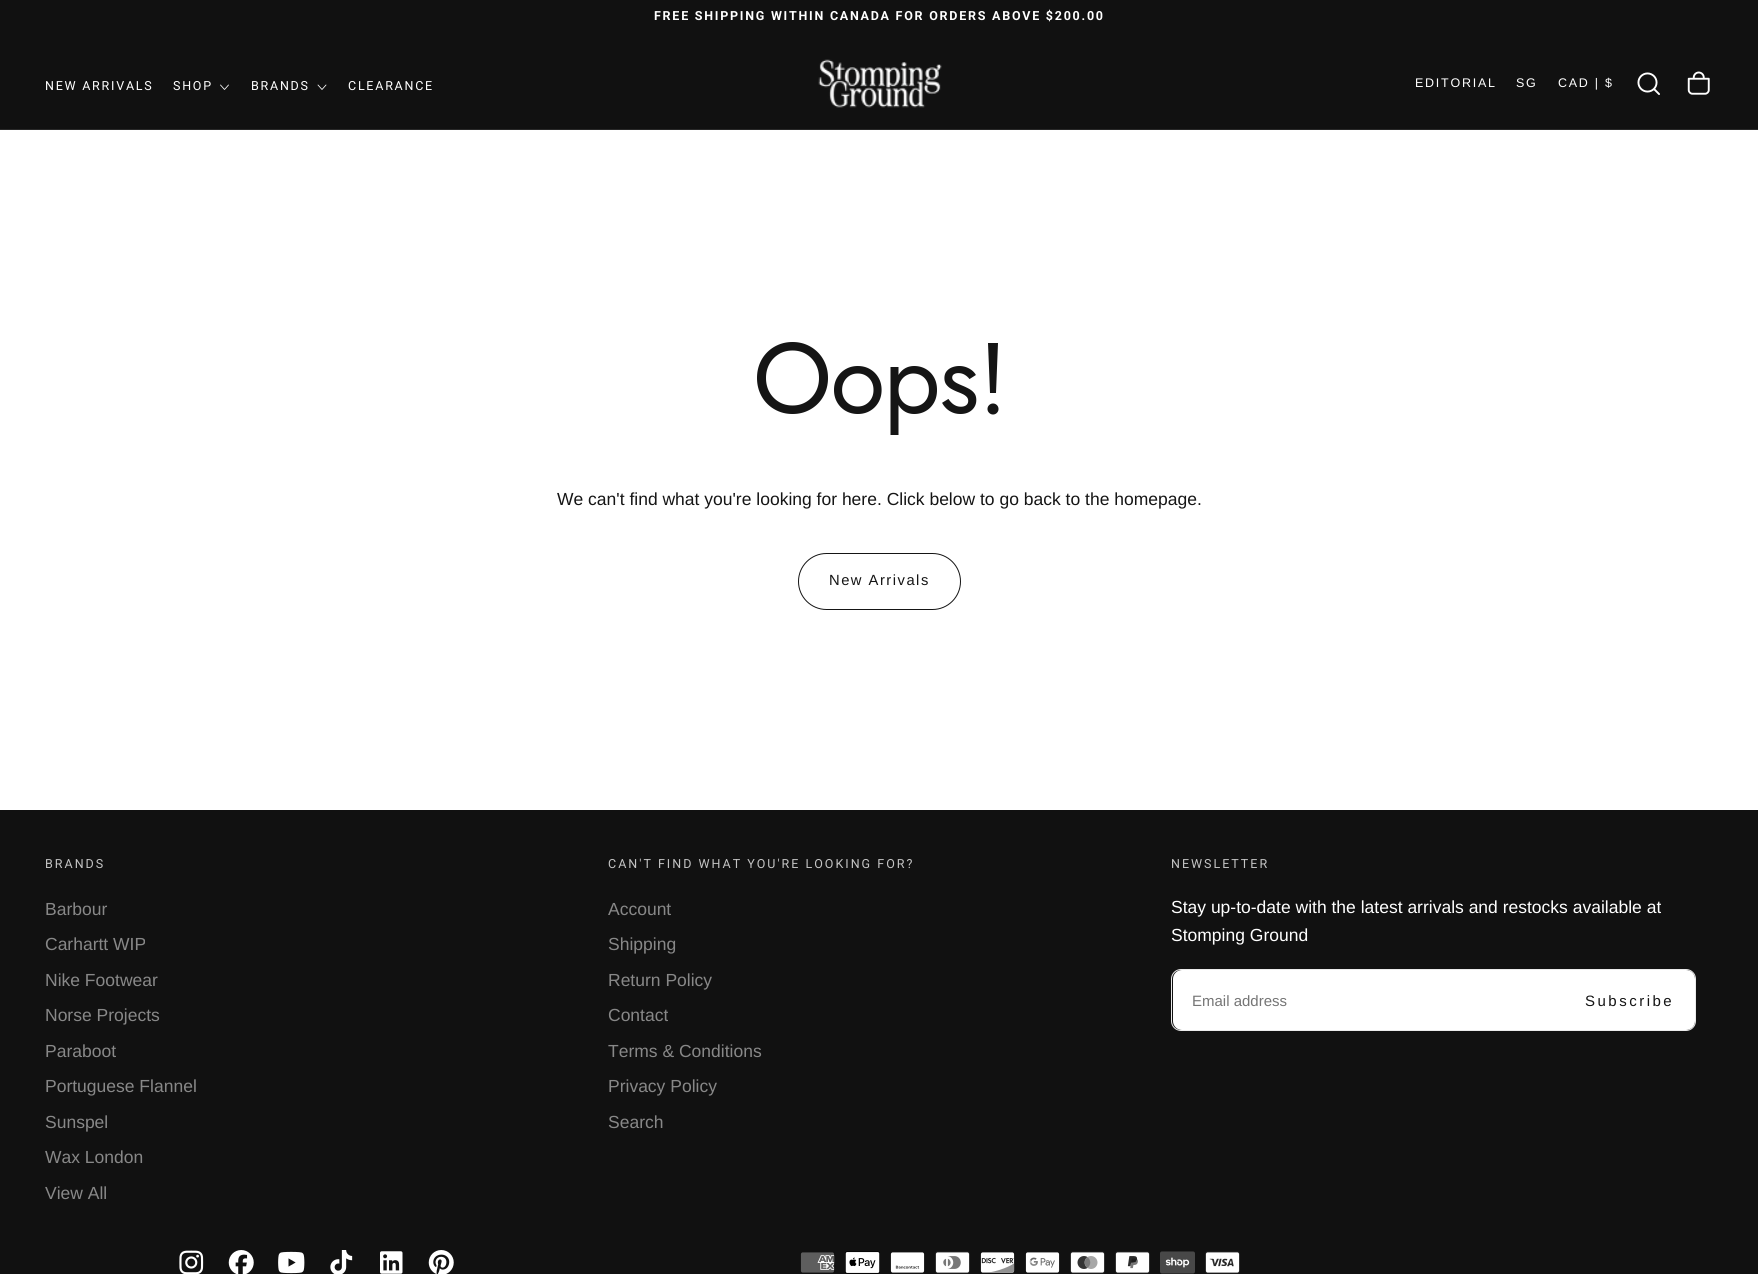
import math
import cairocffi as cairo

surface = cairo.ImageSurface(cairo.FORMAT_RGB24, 1758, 1274)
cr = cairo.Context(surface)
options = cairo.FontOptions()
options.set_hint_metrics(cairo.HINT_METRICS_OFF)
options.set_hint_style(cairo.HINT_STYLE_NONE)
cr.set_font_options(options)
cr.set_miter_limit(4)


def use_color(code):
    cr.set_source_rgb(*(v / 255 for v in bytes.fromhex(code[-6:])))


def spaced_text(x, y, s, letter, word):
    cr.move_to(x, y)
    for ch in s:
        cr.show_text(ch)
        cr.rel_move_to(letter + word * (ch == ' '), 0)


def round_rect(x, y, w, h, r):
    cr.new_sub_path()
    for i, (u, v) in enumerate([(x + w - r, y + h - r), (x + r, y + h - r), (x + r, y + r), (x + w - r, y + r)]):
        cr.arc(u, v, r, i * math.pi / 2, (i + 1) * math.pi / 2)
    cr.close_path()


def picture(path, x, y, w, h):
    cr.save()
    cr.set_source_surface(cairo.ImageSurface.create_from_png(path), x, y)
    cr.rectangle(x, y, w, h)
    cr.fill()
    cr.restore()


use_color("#ffffff")
cr.paint()
use_color("#111111")
cr.rectangle(0, 0, 1758, 129)
cr.fill()
cr.select_font_face("Roboto", cairo.FONT_SLANT_NORMAL, cairo.FONT_WEIGHT_BOLD)
cr.set_font_size(12.5)
use_color("#ffffff")
spaced_text(654, 20, "FREE SHIPPING WITHIN CANADA FOR ORDERS ABOVE $200.00", 1.75, 0)
use_color("#292929")
cr.rectangle(0, 129, 1758, 1)
cr.fill()
cr.select_font_face("Roboto")
use_color("#ffffff")
spaced_text(45, 90, "NEW ARRIVALS", 1.75, 0)
spaced_text(173, 90, "SHOP", 1.75, 0)
cr.new_path()
cr.move_to(228.5, 85)
cr.line_to(224.5, 89.5)
cr.line_to(220.5, 85)
cr.set_line_width(0.8)
cr.set_line_cap(cairo.LINE_CAP_ROUND)
cr.set_line_join(cairo.LINE_JOIN_ROUND)
cr.stroke()
spaced_text(251, 90, "BRANDS", 1.75, 0)
cr.new_path()
cr.move_to(326, 85)
cr.line_to(322, 89.5)
cr.line_to(318, 85)
cr.stroke()
spaced_text(348, 90, "CLEARANCE", 1.75, 0)
picture("img1.png", 818, 59, 124, 49)
cr.select_font_face("Liberation Sans")
spaced_text(1415, 87, "EDITORIAL", 1.75, 0)
spaced_text(1516, 87, "SG", 1.75, 0)
spaced_text(1558, 87, "CAD | $", 1.75, 0)
picture("img2.png", 1637, 72, 23, 23)
picture("img3.png", 1687, 71, 23, 24)
cr.select_font_face("Jost")
cr.set_font_size(100)
use_color("#151515")
spaced_text(753, 413, "Oops!", -1.5, 0)
cr.select_font_face("Liberation Sans")
cr.set_font_size(17.5)
cr.move_to(557, 505)
cr.show_text("We can't find what you're looking for here. Click below to go back to the homepage.")
round_rect(798.5, 553.5, 162, 56, 28)
cr.set_line_width(1)
cr.set_line_cap(cairo.LINE_CAP_BUTT)
cr.set_line_join(cairo.LINE_JOIN_MITER)
cr.stroke()
cr.set_font_size(14.75)
spaced_text(829, 585, "New Arrivals", 1.5, 0)
use_color("#111111")
cr.rectangle(0, 810, 1758, 464)
cr.fill()
cr.select_font_face("Roboto")
cr.set_font_size(12.5)
use_color("#c4c4c4")
spaced_text(45, 868, "BRANDS", 2, 0)
cr.select_font_face("Liberation Sans")
cr.set_font_size(17.5)
use_color("#888888")
cr.move_to(45, 915)
cr.show_text("Barbour")
cr.move_to(45, 950)
cr.show_text("Carhartt WIP")
cr.move_to(45, 986)
cr.show_text("Nike Footwear")
cr.move_to(45, 1021)
cr.show_text("Norse Projects")
cr.move_to(45, 1057)
cr.show_text("Paraboot")
cr.move_to(45, 1092)
cr.show_text("Portuguese Flannel")
cr.move_to(45, 1128)
cr.show_text("Sunspel")
cr.move_to(45, 1163)
cr.show_text("Wax London")
cr.move_to(45, 1199)
cr.show_text("View All")
cr.select_font_face("Roboto")
cr.set_font_size(12.5)
use_color("#c4c4c4")
spaced_text(608, 868, "CAN'T FIND WHAT YOU'RE LOOKING FOR?", 2, 0)
cr.select_font_face("Liberation Sans")
cr.set_font_size(17.5)
use_color("#888888")
cr.move_to(608, 915)
cr.show_text("Account")
cr.move_to(608, 950)
cr.show_text("Shipping")
cr.move_to(608, 986)
cr.show_text("Return Policy")
cr.move_to(608, 1021)
cr.show_text("Contact")
cr.move_to(608, 1057)
cr.show_text("Terms & Conditions")
cr.move_to(608, 1092)
cr.show_text("Privacy Policy")
cr.move_to(608, 1128)
cr.show_text("Search")
cr.select_font_face("Roboto")
cr.set_font_size(12.5)
use_color("#c4c4c4")
spaced_text(1171, 868, "NEWSLETTER", 2, 0)
cr.select_font_face("Liberation Sans")
cr.set_font_size(17.5)
use_color("#ffffff")
cr.move_to(1171, 913)
cr.show_text("Stay up-to-date with the latest arrivals and restocks available at")
cr.move_to(1171, 941)
cr.show_text("Stomping Ground")
round_rect(1171.5, 969.5, 524, 61, 9.5)
use_color("#ebebeb")
cr.stroke()
use_color("#ffffff")
cr.new_path()
cr.move_to(1182, 970)
cr.line_to(1565, 970)
cr.line_to(1565, 1030)
cr.line_to(1182, 1030)
cr.curve_to(1177, 1030, 1173, 1026, 1173, 1021)
cr.line_to(1173, 979)
cr.curve_to(1173, 974, 1177, 970, 1182, 970)
cr.close_path()
cr.fill()
cr.set_font_size(15)
use_color("#757575")
cr.move_to(1192, 1006)
cr.show_text("Email address")
use_color("#ffffff")
cr.new_path()
cr.move_to(1565, 970)
cr.line_to(1686, 970)
cr.curve_to(1691, 970, 1695, 974, 1695, 979)
cr.line_to(1695, 1021)
cr.curve_to(1695, 1026, 1691, 1030, 1686, 1030)
cr.line_to(1565, 1030)
cr.close_path()
cr.fill()
use_color("#151515")
spaced_text(1585, 1006, "Subscribe", 2.5, 0)
picture("img4.png", 179, 1250, 25, 24)
picture("img5.png", 228, 1250, 26, 24)
picture("img6.png", 278, 1251, 27, 23)
picture("img7.png", 330, 1250, 23, 24)
picture("img8.png", 380, 1251, 23, 23)
picture("img9.png", 428, 1250, 26, 24)
picture("img10.png", 800, 1252, 35, 21)
picture("img11.png", 845, 1251, 35, 23)
picture("img12.png", 890, 1252, 35, 21)
picture("img13.png", 935, 1251, 35, 23)
picture("img14.png", 980, 1252, 35, 21)
picture("img15.png", 1025, 1252, 35, 21)
picture("img16.png", 1070, 1251, 35, 23)
picture("img17.png", 1115, 1251, 35, 23)
picture("img18.png", 1160, 1251, 35, 23)
picture("img19.png", 1205, 1251, 35, 23)
surface.write_to_png("result.png")
